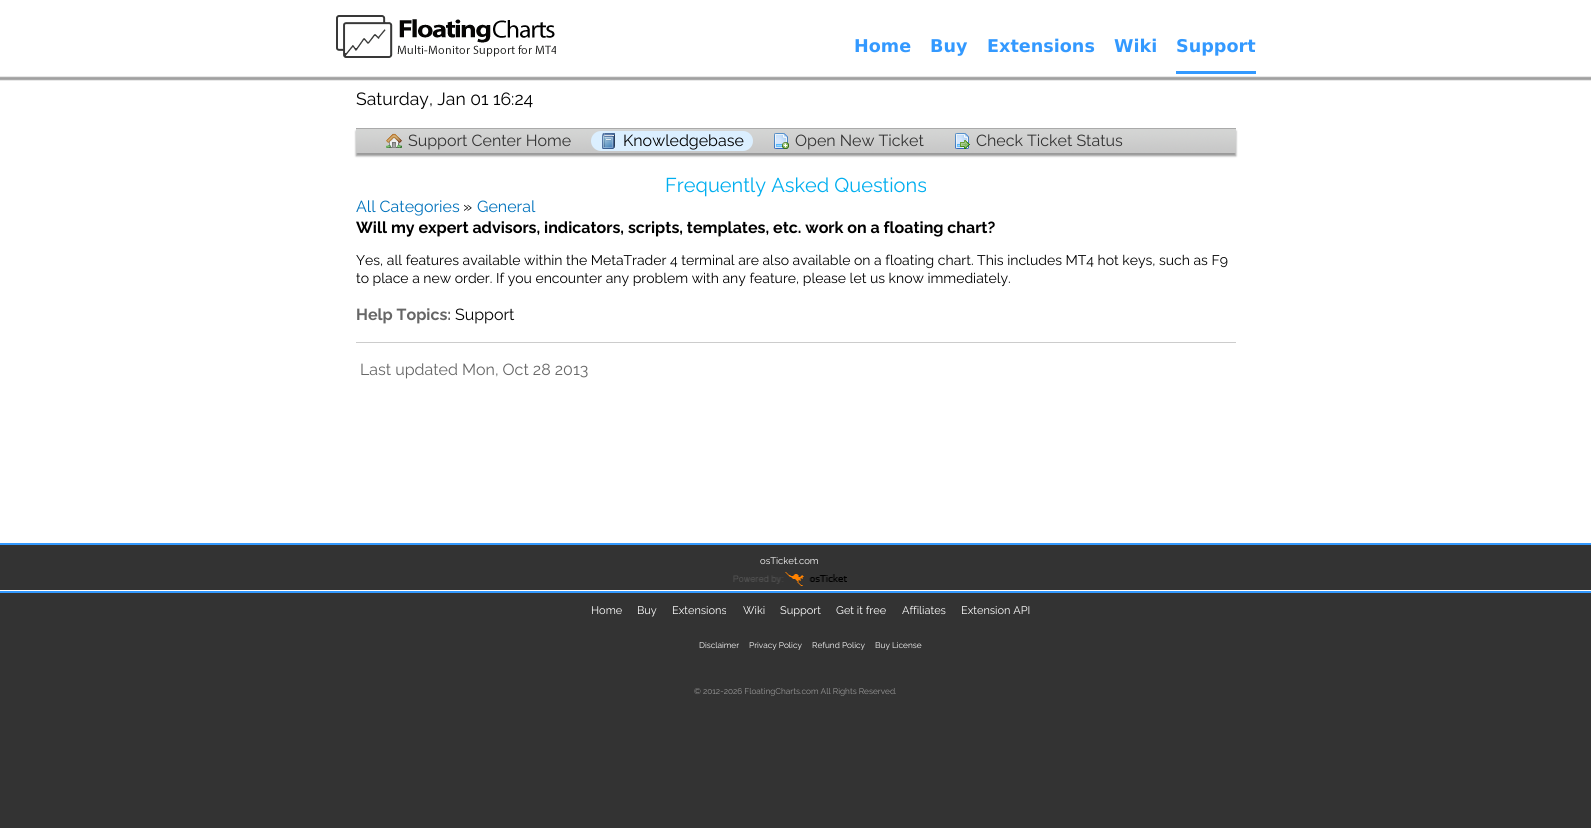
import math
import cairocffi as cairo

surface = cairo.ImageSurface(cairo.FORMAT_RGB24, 1591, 828)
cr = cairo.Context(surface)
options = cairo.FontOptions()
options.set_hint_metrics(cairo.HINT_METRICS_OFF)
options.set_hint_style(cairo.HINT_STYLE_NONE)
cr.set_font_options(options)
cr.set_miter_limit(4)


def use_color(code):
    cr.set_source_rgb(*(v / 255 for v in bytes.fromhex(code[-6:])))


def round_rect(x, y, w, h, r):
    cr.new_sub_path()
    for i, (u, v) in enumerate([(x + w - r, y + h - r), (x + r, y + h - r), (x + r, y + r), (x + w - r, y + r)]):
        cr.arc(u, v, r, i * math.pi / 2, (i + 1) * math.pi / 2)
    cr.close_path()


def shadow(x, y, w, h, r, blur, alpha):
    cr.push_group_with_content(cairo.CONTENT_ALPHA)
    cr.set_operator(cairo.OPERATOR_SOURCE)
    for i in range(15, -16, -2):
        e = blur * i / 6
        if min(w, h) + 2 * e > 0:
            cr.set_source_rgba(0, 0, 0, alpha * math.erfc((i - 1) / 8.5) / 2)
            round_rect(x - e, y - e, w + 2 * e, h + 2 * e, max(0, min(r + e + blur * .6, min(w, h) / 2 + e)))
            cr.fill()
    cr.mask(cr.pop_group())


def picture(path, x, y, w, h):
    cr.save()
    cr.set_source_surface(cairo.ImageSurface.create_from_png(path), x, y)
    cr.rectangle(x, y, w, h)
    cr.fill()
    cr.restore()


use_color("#333333")
cr.paint()
use_color("#ffffff")
cr.rectangle(0, 0, 1591, 591)
cr.fill()
picture("img1.png", 336, 15, 220, 43)
cr.select_font_face("DejaVu Sans", cairo.FONT_SLANT_NORMAL, cairo.FONT_WEIGHT_BOLD)
cr.set_font_size(17.6)
use_color("#3399ff")
cr.move_to(854, 52)
cr.show_text("Home")
cr.move_to(930, 52)
cr.show_text("Buy")
cr.move_to(987, 52)
cr.show_text("Extensions")
cr.move_to(1114, 52)
cr.show_text("Wiki")
cr.move_to(1176, 52)
cr.show_text("Support")
cr.rectangle(1176, 71, 80, 3)
cr.fill()
use_color("#808080")
shadow(-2, 77, 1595, 3, 0, 0.5, 0.75)
cr.select_font_face("Raleway")
use_color("#000000")
cr.move_to(356, 105)
cr.show_text("Saturday, Jan 01 16:24")
use_color("#000000")
shadow(356, 131, 880, 25, 0, 1, 0.4)
picture("img2.png", 356, 129, 880, 24)
use_color("#aaaaaa")
cr.rectangle(356, 128, 880, 1)
cr.fill()
picture("img3.png", 386, 133, 16, 15)
cr.set_font_size(16)
use_color("#333333")
cr.move_to(408, 146)
cr.show_text("Support Center Home")
use_color("#dbefff")
round_rect(591, 131, 162, 20, 10)
cr.fill()
picture("img4.png", 602, 133, 13, 16)
use_color("#000000")
cr.move_to(623, 146)
cr.show_text("Knowledgebase")
picture("img5.png", 774, 133, 15, 16)
use_color("#333333")
cr.move_to(795, 146)
cr.show_text("Open New Ticket")
picture("img6.png", 955, 133, 15, 16)
cr.move_to(976, 146)
cr.show_text("Check Ticket Status")
cr.set_font_size(20)
use_color("#00aeef")
cr.move_to(665, 192)
cr.show_text("Frequently Asked Questions")
cr.set_font_size(16)
use_color("#0072bc")
cr.move_to(356, 212)
cr.show_text("All Categories")
use_color("#000000")
cr.move_to(463, 212)
cr.show_text("»")
use_color("#0072bc")
cr.move_to(477, 212)
cr.show_text("General")
cr.select_font_face("Raleway", cairo.FONT_SLANT_NORMAL, cairo.FONT_WEIGHT_BOLD)
use_color("#000000")
cr.move_to(356, 233)
cr.show_text("Will my expert advisors, indicators, scripts, templates, etc. work on a floating chart?")
cr.select_font_face("Raleway")
cr.set_font_size(14)
cr.move_to(356, 265)
cr.show_text("Yes, all features available within the MetaTrader 4 terminal are also available on a floating chart. This includes MT4 hot keys, such as F9")
cr.move_to(356, 283)
cr.show_text("to place a new order. If you encounter any problem with any feature, please let us know immediately.")
cr.select_font_face("Raleway", cairo.FONT_SLANT_NORMAL, cairo.FONT_WEIGHT_BOLD)
cr.set_font_size(16)
use_color("#666666")
cr.move_to(356, 320)
cr.show_text("Help Topics:")
cr.select_font_face("Raleway")
use_color("#000000")
cr.move_to(455, 320)
cr.show_text("Support")
use_color("#cccccc")
cr.rectangle(356, 342, 880, 1)
cr.fill()
use_color("#666666")
cr.move_to(360, 375)
cr.show_text("Last updated Mon, Oct 28 2013")
use_color("#333333")
cr.rectangle(0, 545, 1591, 45)
cr.fill()
use_color("#3399ff")
cr.rectangle(0, 543, 1591, 2)
cr.fill()
cr.set_font_size(9.5)
use_color("#ffffff")
cr.move_to(760, 564)
cr.show_text("osTicket.com")
picture("img7.png", 733, 572, 114, 14)
use_color("#3399ff")
cr.rectangle(0, 591, 1591, 2)
cr.fill()
cr.set_font_size(11)
use_color("#ffffff")
cr.move_to(591, 614)
cr.show_text("Home")
cr.move_to(637, 614)
cr.show_text("Buy")
cr.move_to(672, 614)
cr.show_text("Extensions")
cr.move_to(743, 614)
cr.show_text("Wiki")
cr.move_to(780, 614)
cr.show_text("Support")
cr.move_to(836, 614)
cr.show_text("Get it free")
cr.move_to(902, 614)
cr.show_text("Affiliates")
cr.move_to(961, 614)
cr.show_text("Extension API")
cr.set_font_size(8.25)
cr.move_to(699, 648)
cr.show_text("Disclaimer")
cr.move_to(749, 648)
cr.show_text("Privacy Policy")
cr.move_to(812, 648)
cr.show_text("Refund Policy")
cr.move_to(875, 648)
cr.show_text("Buy License")
use_color("#999999")
cr.move_to(694, 694)
cr.show_text("© 2012-2026 FloatingCharts.com All Rights Reserved.")
surface.write_to_png("result.png")
